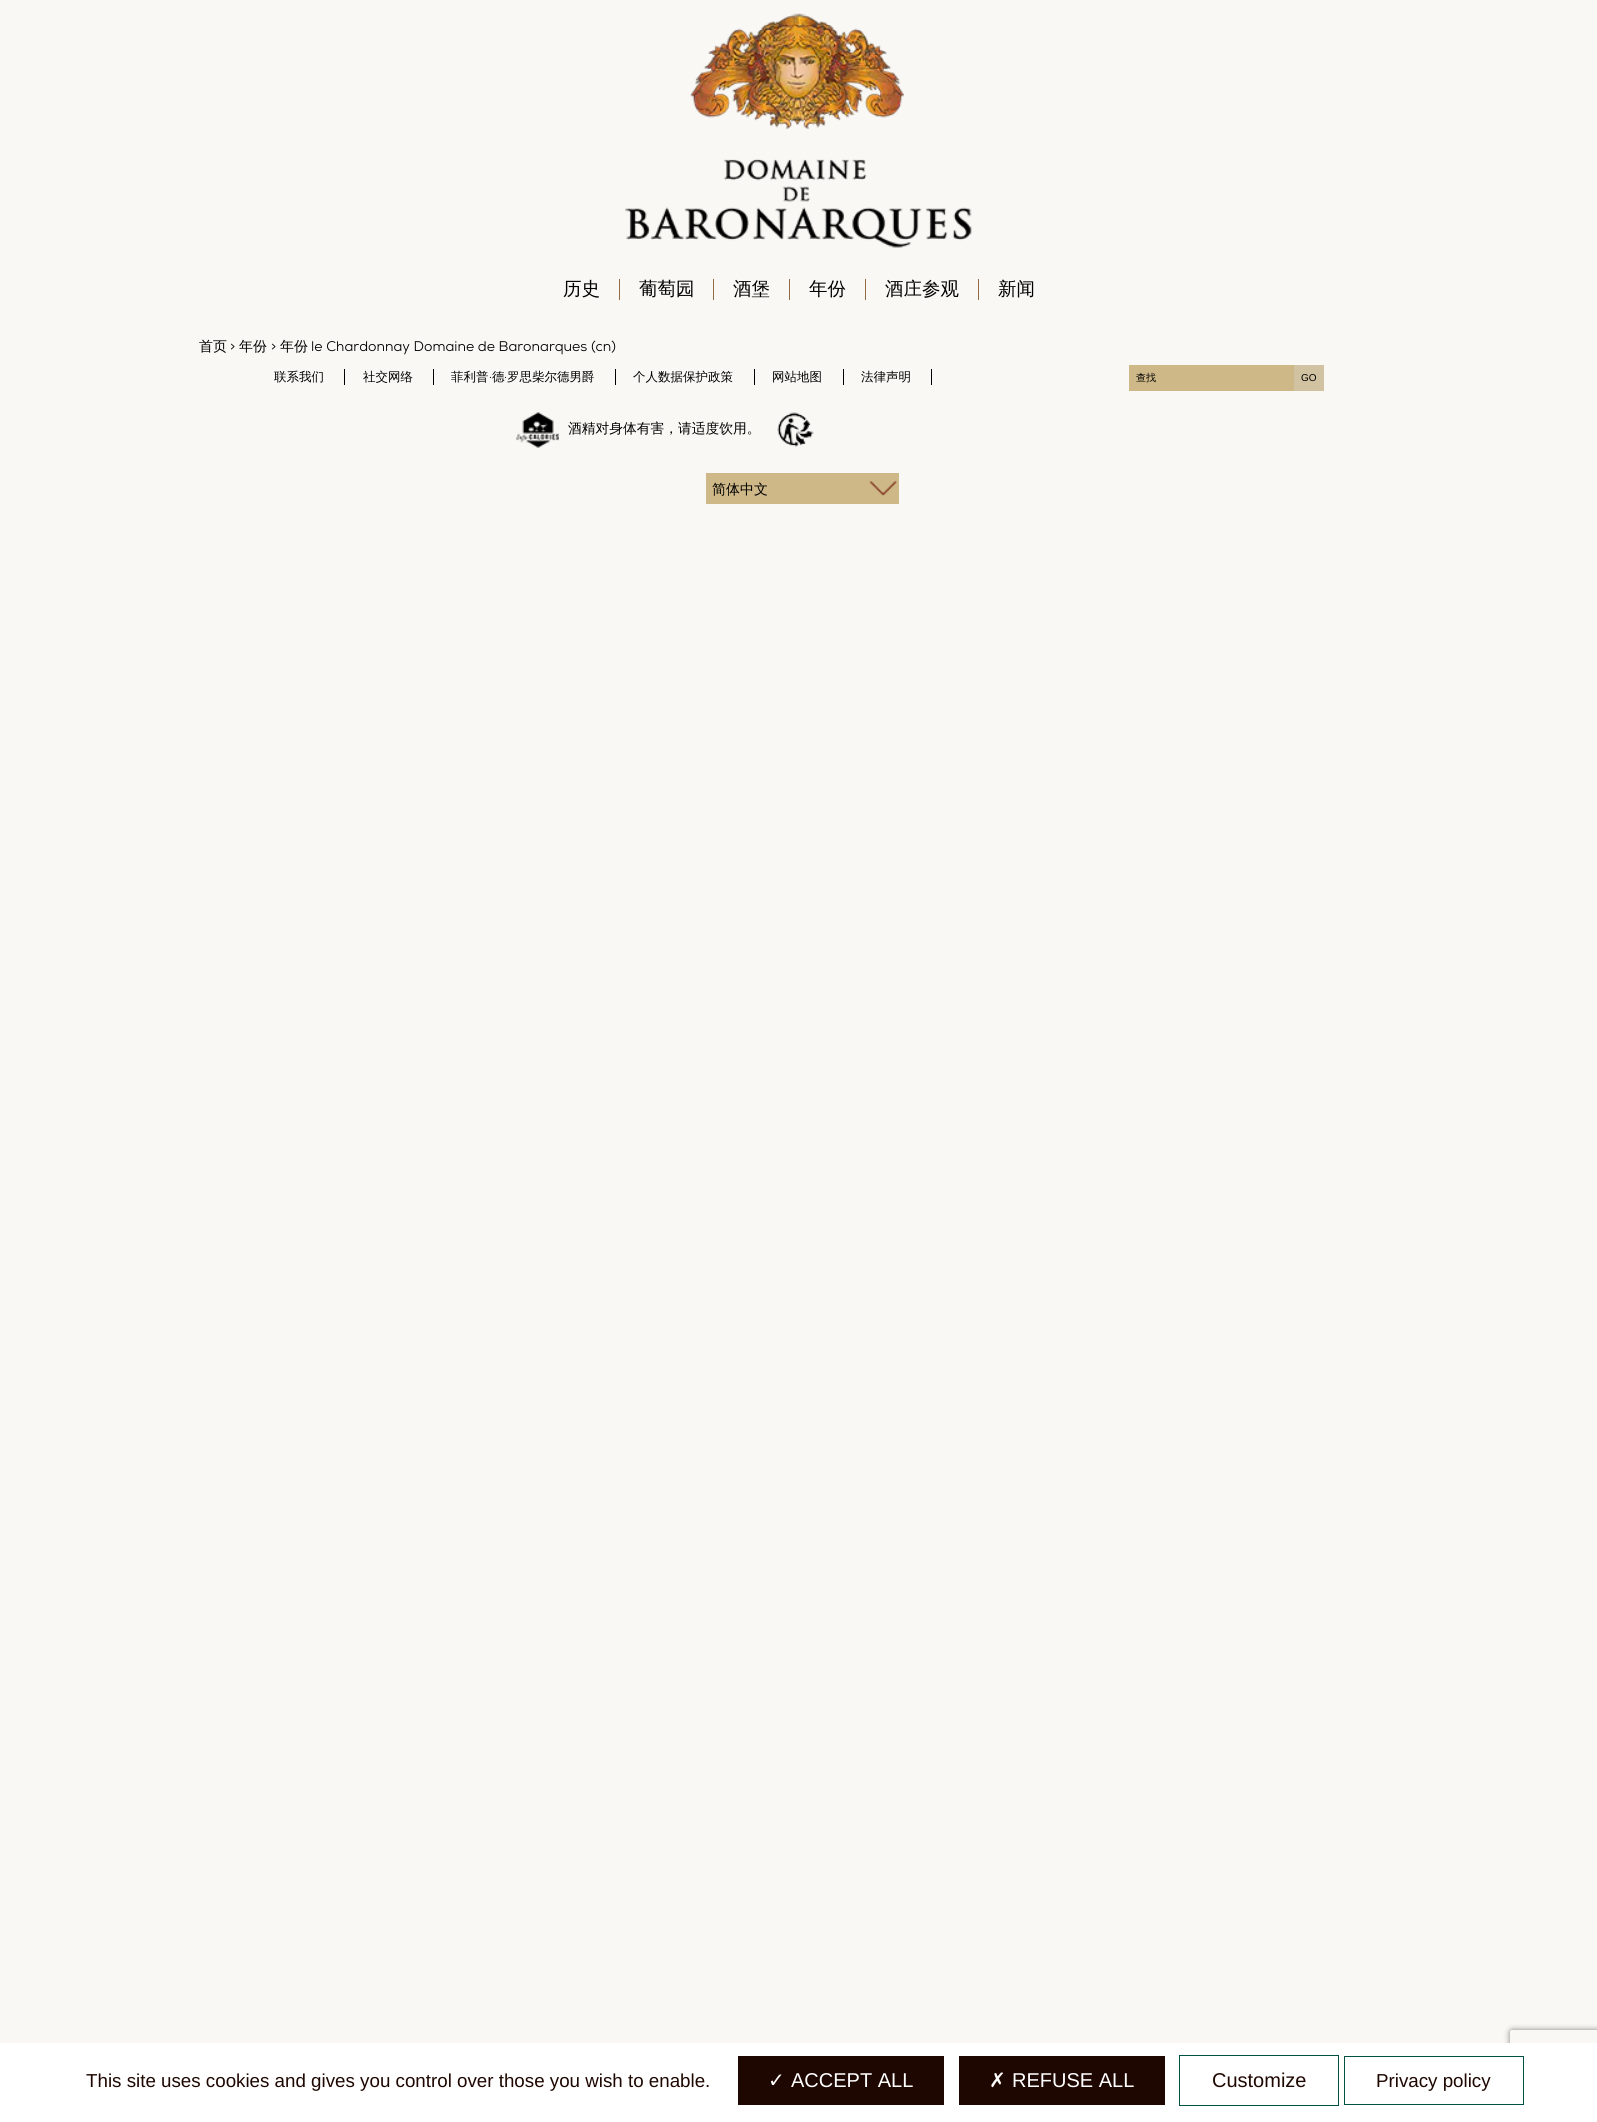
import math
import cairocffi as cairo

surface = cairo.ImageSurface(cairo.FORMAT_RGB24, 1597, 2122)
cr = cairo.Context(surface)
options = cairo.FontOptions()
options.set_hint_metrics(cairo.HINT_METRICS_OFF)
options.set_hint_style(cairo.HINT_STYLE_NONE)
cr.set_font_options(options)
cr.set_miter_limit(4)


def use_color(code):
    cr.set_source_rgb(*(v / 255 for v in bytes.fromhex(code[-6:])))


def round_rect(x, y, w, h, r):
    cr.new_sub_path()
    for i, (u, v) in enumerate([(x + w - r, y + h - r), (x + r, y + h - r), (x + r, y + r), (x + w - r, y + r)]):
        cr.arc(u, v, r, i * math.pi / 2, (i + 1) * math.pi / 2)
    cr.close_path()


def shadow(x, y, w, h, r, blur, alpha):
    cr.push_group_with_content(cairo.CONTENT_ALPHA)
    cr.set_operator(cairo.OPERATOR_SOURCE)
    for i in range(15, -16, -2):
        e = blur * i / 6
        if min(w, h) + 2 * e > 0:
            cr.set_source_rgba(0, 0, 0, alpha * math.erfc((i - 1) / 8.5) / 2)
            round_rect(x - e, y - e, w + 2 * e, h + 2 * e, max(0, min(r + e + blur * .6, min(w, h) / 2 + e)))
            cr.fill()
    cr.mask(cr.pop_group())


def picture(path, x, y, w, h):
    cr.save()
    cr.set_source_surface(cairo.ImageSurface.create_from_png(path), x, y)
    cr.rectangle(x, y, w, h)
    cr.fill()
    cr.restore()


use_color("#f9f8f4")
cr.paint()
picture("img1.png", 625, 13, 347, 235)
cr.select_font_face("WenQuanYi Zen Hei Medium")
cr.set_font_size(18.5)
use_color("#000000")
cr.move_to(563, 295)
cr.show_text("历史")
use_color("#936c46")
cr.rectangle(619, 279, 1, 21)
cr.fill()
use_color("#000000")
cr.move_to(639, 295)
cr.show_text("葡萄园")
use_color("#936c46")
cr.rectangle(713, 279, 1, 21)
cr.fill()
use_color("#000000")
cr.move_to(733, 295)
cr.show_text("酒堡")
use_color("#936c46")
cr.rectangle(789, 279, 1, 21)
cr.fill()
use_color("#000000")
cr.move_to(809, 295)
cr.show_text("年份")
use_color("#936c46")
cr.rectangle(865, 279, 1, 21)
cr.fill()
use_color("#000000")
cr.move_to(885, 295)
cr.show_text("酒庄参观")
use_color("#936c46")
cr.rectangle(978, 279, 1, 21)
cr.fill()
use_color("#000000")
cr.move_to(998, 295)
cr.show_text("新闻")
cr.set_font_size(14)
cr.move_to(199, 351)
cr.show_text("首页")
cr.select_font_face("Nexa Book")
cr.move_to(230, 351)
cr.show_text(">")
cr.select_font_face("WenQuanYi Zen Hei Medium")
cr.move_to(239, 351)
cr.show_text("年份")
cr.select_font_face("Nexa Book")
cr.move_to(271, 351)
cr.show_text(">")
cr.select_font_face("WenQuanYi Zen Hei Medium")
cr.move_to(280, 351)
cr.show_text("年份")
cr.select_font_face("Nexa Book")
cr.move_to(311, 351)
cr.show_text("le Chardonnay Domaine de Baronarques (cn)")
cr.select_font_face("WenQuanYi Zen Hei Medium")
cr.set_font_size(12.5)
cr.move_to(274, 381)
cr.show_text("联系我们")
cr.rectangle(344, 369, 1, 16)
cr.fill()
cr.move_to(363, 381)
cr.show_text("社交网络")
cr.rectangle(433, 369, 1, 16)
cr.fill()
cr.move_to(451, 381)
cr.show_text("菲利普")
cr.select_font_face("Nexa Book")
cr.move_to(489, 381)
cr.show_text("·")
cr.select_font_face("WenQuanYi Zen Hei Medium")
cr.move_to(492, 381)
cr.show_text("德")
cr.select_font_face("Nexa Book")
cr.move_to(504, 381)
cr.show_text("·")
cr.select_font_face("WenQuanYi Zen Hei Medium")
cr.move_to(507, 381)
cr.show_text("罗思柴尔德男爵")
cr.rectangle(615, 369, 1, 16)
cr.fill()
cr.move_to(633, 381)
cr.show_text("个人数据保护政策")
cr.rectangle(754, 369, 1, 16)
cr.fill()
cr.move_to(772, 381)
cr.show_text("网站地图")
cr.rectangle(843, 369, 1, 16)
cr.fill()
cr.move_to(861, 381)
cr.show_text("法律声明")
cr.rectangle(931, 369, 1, 16)
cr.fill()
use_color("#ceb888")
cr.rectangle(1129, 365, 165, 26)
cr.fill()
cr.set_font_size(10)
use_color("#000000")
cr.move_to(1136, 381)
cr.show_text("查找")
use_color("#d1c2a1")
cr.rectangle(1294, 365, 30, 26)
cr.fill()
cr.select_font_face("Liberation Sans")
use_color("#000000")
cr.move_to(1301, 381)
cr.show_text("GO")
picture("img2.png", 516, 412, 43, 36)
cr.select_font_face("WenQuanYi Zen Hei Medium")
cr.set_font_size(13.75)
cr.move_to(568, 433)
cr.show_text("酒精对身体有害，请适度饮用。")
picture("img3.png", 777, 412, 37, 36)
use_color("#ceb888")
cr.rectangle(706, 473, 193, 31)
cr.fill()
picture("img4.png", 869, 481, 28, 15)
cr.set_font_size(14)
use_color("#000000")
cr.move_to(712, 494)
cr.show_text("简体中文")
cr.save()
cr.set_fill_rule(cairo.FILL_RULE_EVEN_ODD)
cr.new_path()
cr.move_to(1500, 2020)
cr.line_to(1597, 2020)
cr.line_to(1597, 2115)
cr.line_to(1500, 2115)
cr.close_path()
cr.move_to(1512.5, 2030)
cr.line_to(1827.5, 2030)
cr.curve_to(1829, 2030, 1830, 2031, 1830, 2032.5)
cr.line_to(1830, 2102.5)
cr.curve_to(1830, 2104, 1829, 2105, 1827.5, 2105)
cr.line_to(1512.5, 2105)
cr.curve_to(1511, 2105, 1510, 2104, 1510, 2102.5)
cr.line_to(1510, 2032.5)
cr.curve_to(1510, 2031, 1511, 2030, 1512.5, 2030)
cr.close_path()
cr.clip()
use_color("#808080")
shadow(1510, 2030, 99, 75, 2.5, 3, 1)
cr.restore()
use_color("#ffffff")
cr.rectangle(0, 2043, 1597, 79)
cr.fill()
cr.select_font_face("Liberation Sans")
cr.set_font_size(18.75)
use_color("#1f0701")
cr.move_to(86, 2087)
cr.show_text("This site uses cookies and gives you control over those you wish to enable.")
cr.rectangle(738, 2056, 206, 49)
cr.fill()
cr.select_font_face("DejaVu Sans")
cr.set_font_size(20)
use_color("#ffffff")
cr.move_to(768, 2087)
cr.show_text("✓")
cr.select_font_face("Liberation Sans")
cr.move_to(791, 2087)
cr.show_text("ACCEPT ALL")
use_color("#1f0701")
cr.rectangle(959, 2056, 206, 49)
cr.fill()
cr.select_font_face("DejaVu Sans")
use_color("#ffffff")
cr.move_to(989, 2087)
cr.show_text("✗")
cr.select_font_face("Liberation Sans")
cr.move_to(1012, 2087)
cr.show_text("REFUSE ALL")
cr.rectangle(1179.5, 2055.5, 159, 50)
use_color("#005244")
cr.set_line_width(1)
cr.stroke()
use_color("#1f0701")
cr.move_to(1212, 2087)
cr.show_text("Customize")
cr.rectangle(1344.5, 2056.5, 179, 48)
use_color("#005244")
cr.stroke()
cr.set_font_size(18.75)
use_color("#1f0701")
cr.move_to(1376, 2087)
cr.show_text("Privacy policy")
surface.write_to_png("result.png")
